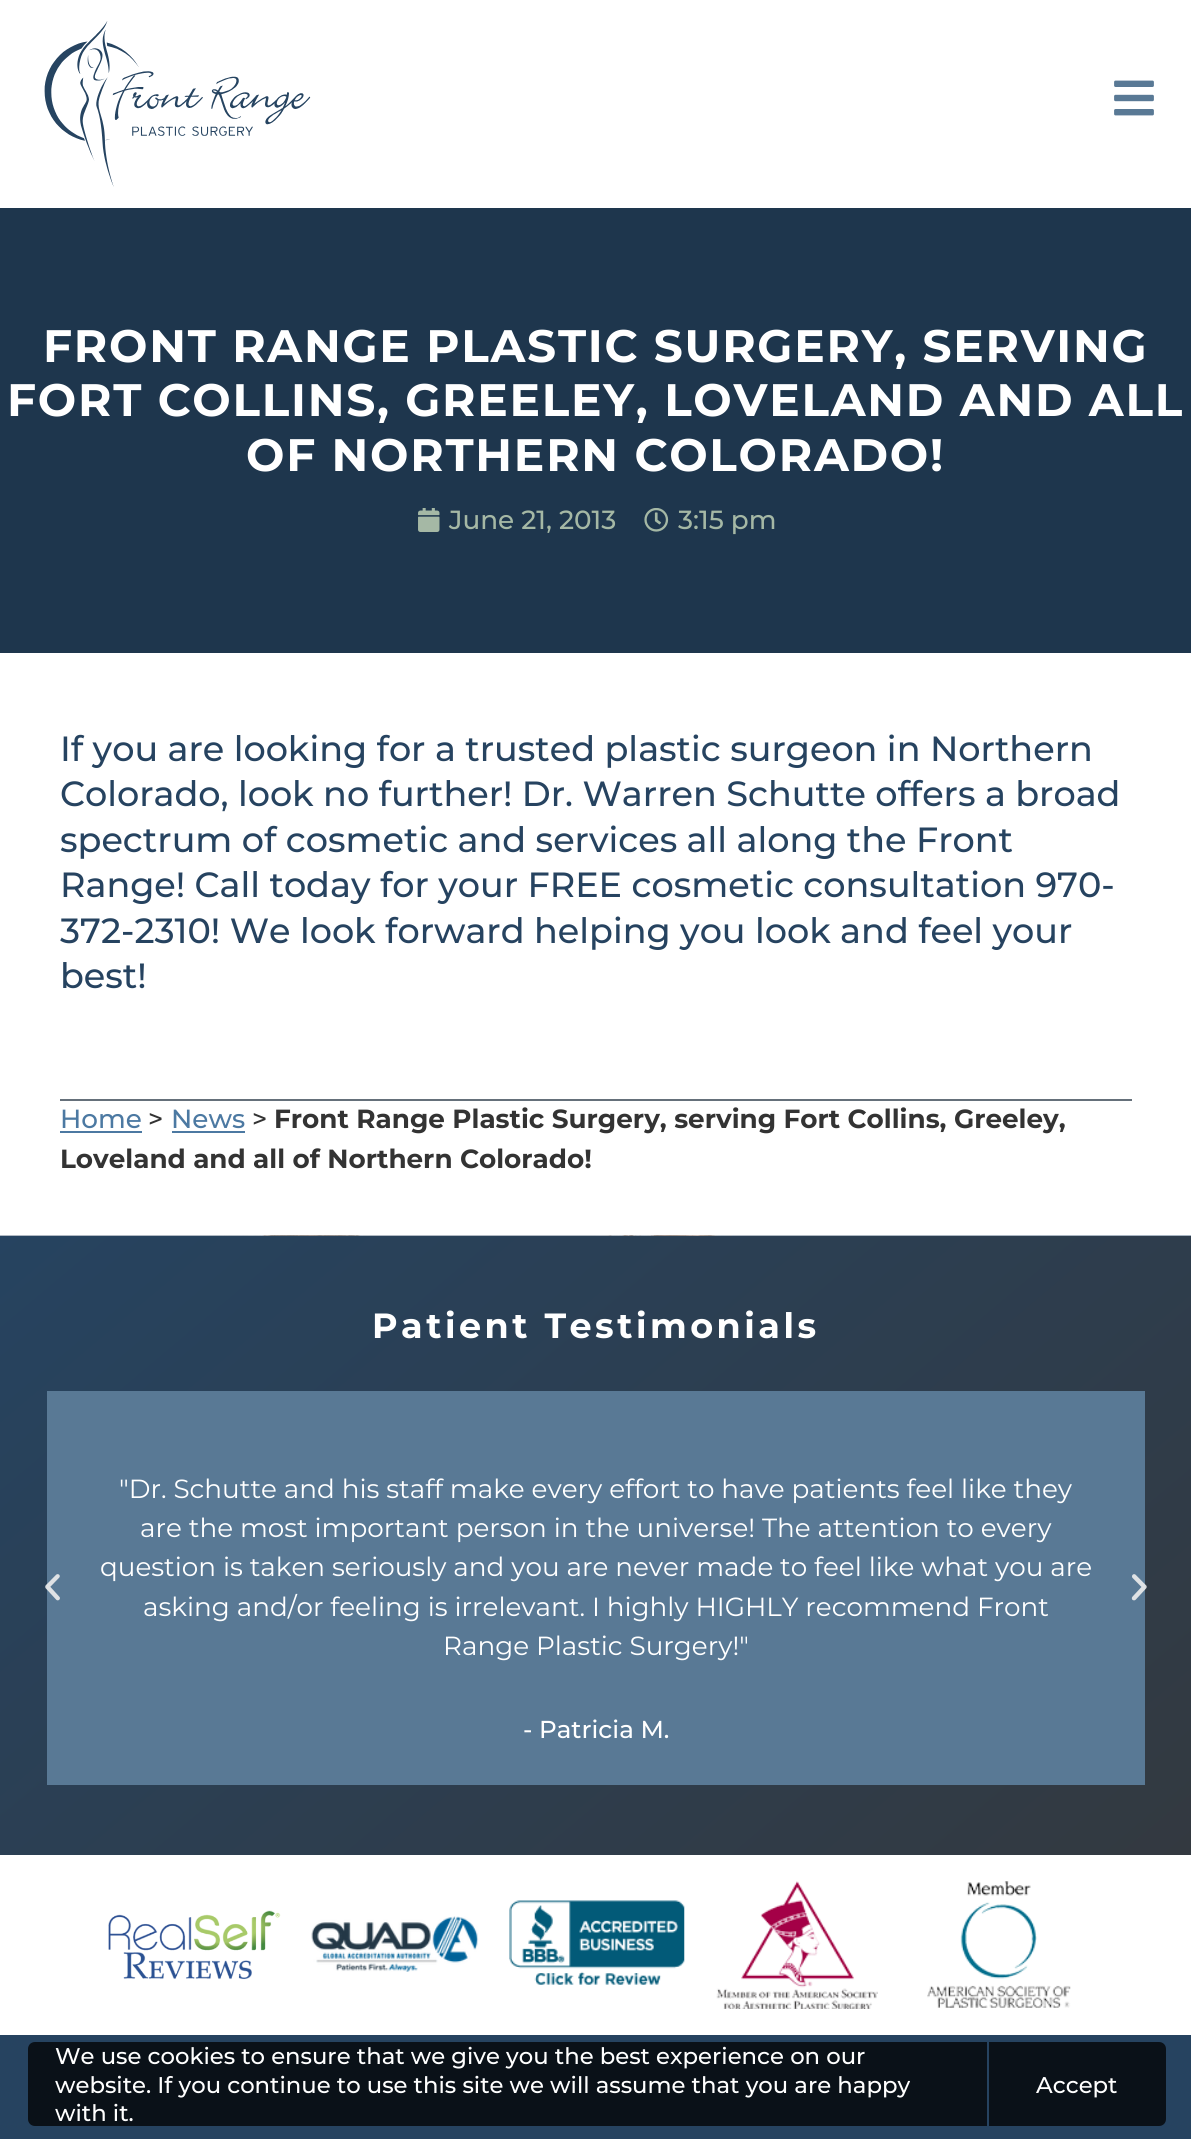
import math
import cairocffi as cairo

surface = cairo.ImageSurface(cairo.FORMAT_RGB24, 1191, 2139)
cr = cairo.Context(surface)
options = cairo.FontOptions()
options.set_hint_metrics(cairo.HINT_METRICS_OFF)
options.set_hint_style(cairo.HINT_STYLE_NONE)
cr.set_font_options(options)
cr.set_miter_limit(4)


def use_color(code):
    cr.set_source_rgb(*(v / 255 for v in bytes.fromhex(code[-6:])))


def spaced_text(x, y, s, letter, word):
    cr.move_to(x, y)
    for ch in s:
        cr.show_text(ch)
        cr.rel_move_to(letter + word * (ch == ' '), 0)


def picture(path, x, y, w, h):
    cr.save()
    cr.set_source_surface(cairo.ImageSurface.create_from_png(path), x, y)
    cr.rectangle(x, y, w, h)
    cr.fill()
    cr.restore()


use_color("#ffffff")
cr.paint()
picture("img1.png", 44, 21, 267, 166)
picture("img2.png", 1114, 80, 40, 36)
use_color("#1e364d")
cr.rectangle(0, 208, 1191, 445)
cr.fill()
cr.select_font_face("Montserrat", cairo.FONT_SLANT_NORMAL, cairo.FONT_WEIGHT_BOLD)
cr.set_font_size(45.5)
use_color("#ffffff")
spaced_text(43, 362, "FRONT RANGE PLASTIC SURGERY, SERVING", 1.75, 0)
spaced_text(7, 416, "FORT COLLINS, GREELEY, LOVELAND AND ALL", 1.75, 0)
spaced_text(246, 471, "OF NORTHERN COLORADO!", 1.75, 0)
picture("img3.png", 418, 508, 22, 24)
cr.select_font_face("Montserrat Medium")
cr.set_font_size(26.25)
use_color("#a5b8a5")
cr.move_to(449, 529)
cr.show_text("June 21, 2013")
picture("img4.png", 644, 508, 25, 24)
cr.move_to(678, 529)
cr.show_text("3:15 pm")
cr.set_font_size(35)
use_color("#264360")
cr.move_to(60, 761)
cr.show_text("If you are looking for a trusted plastic surgeon in Northern")
cr.move_to(60, 806)
cr.show_text("Colorado, look no further! Dr. Warren Schutte offers a broad")
cr.move_to(60, 852)
cr.show_text("spectrum of cosmetic and services all along the Front")
cr.move_to(60, 897)
cr.show_text("Range! Call today for your FREE cosmetic consultation 970-")
cr.move_to(60, 943)
cr.show_text("372-2310! We look forward helping you look and feel your")
cr.move_to(60, 988)
cr.show_text("best!")
use_color("#65707a")
cr.rectangle(60, 1099, 1072, 2)
cr.fill()
cr.set_font_size(26.25)
use_color("#4c79a2")
cr.move_to(60, 1128)
cr.show_text("Home")
cr.rectangle(60, 1131, 82, 2)
cr.fill()
use_color("#333333")
cr.move_to(148, 1128)
cr.show_text(">")
use_color("#4c79a2")
cr.move_to(171, 1128)
cr.show_text("News")
cr.rectangle(172, 1131, 73, 2)
cr.fill()
use_color("#333333")
cr.move_to(252, 1128)
cr.show_text(">")
cr.select_font_face("Montserrat", cairo.FONT_SLANT_NORMAL, cairo.FONT_WEIGHT_BOLD)
cr.move_to(274, 1128)
cr.show_text("Front Range Plastic Surgery, serving Fort Collins, Greeley,")
cr.move_to(60, 1168)
cr.show_text("Loveland and all of Northern Colorado!")
picture("img5.png", 0, 1235, 1191, 1)
gradient = cairo.LinearGradient(197, 1070, 995, 2020)
gradient.add_color_stop_rgba(0, 0.149, 0.263, 0.376, 1)
gradient.add_color_stop_rgba(1, 0.2, 0.224, 0.251, 1)
cr.set_source(gradient)
cr.rectangle(0, 1236, 1191, 619)
cr.fill()
cr.set_font_size(35)
use_color("#ffffff")
spaced_text(372, 1338, "Patient Testimonials", 3.5, 0)
use_color("#597995")
cr.rectangle(47, 1391, 1098, 394)
cr.fill()
picture("img6.png", 45, 1574, 15, 27)
cr.select_font_face("Montserrat")
cr.set_font_size(26.25)
use_color("#ffffff")
cr.move_to(119, 1498)
cr.show_text("\"Dr. Schutte and his staff make every effort to have patients feel like they")
cr.move_to(140, 1537)
cr.show_text("are the most important person in the universe! The attention to every")
cr.move_to(100, 1576)
cr.show_text("question is taken seriously and you are never made to feel like what you are")
cr.move_to(143, 1616)
cr.show_text("asking and/or feeling is irrelevant. I highly HIGHLY recommend Front")
cr.move_to(443, 1655)
cr.show_text("Range Plastic Surgery!\"")
cr.select_font_face("Montserrat Medium")
cr.set_font_size(24.5)
cr.move_to(523, 1738)
cr.show_text("- Patricia M.")
picture("img7.png", 1131, 1574, 16, 27)
picture("img8.png", 108, 1910, 173, 70)
picture("img9.png", 311, 1916, 168, 56)
picture("img10.png", 509, 1900, 176, 85)
picture("img11.png", 716, 1881, 162, 128)
picture("img12.png", 927, 1881, 144, 127)
use_color("#264360")
cr.rectangle(0, 2035, 1191, 104)
cr.fill()
cr.set_source_rgba(0, 0, 0, 0.75)
cr.new_path()
cr.move_to(35, 2042)
cr.line_to(987, 2042)
cr.line_to(987, 2126)
cr.line_to(35, 2126)
cr.curve_to(31, 2126, 28, 2123, 28, 2119)
cr.line_to(28, 2049)
cr.curve_to(28, 2045, 31, 2042, 35, 2042)
cr.close_path()
cr.fill()
cr.set_font_size(22.75)
use_color("#ffffff")
cr.move_to(55, 2064)
cr.show_text("We use cookies to ensure that we give you the best experience on our")
cr.move_to(55, 2093)
cr.show_text("website. If you continue to use this site we will assume that you are happy")
cr.move_to(55, 2121)
cr.show_text("with it.")
use_color("#0a1118")
cr.new_path()
cr.move_to(989, 2042)
cr.line_to(1159, 2042)
cr.curve_to(1163, 2042, 1166, 2045, 1166, 2049)
cr.line_to(1166, 2119)
cr.curve_to(1166, 2123, 1163, 2126, 1159, 2126)
cr.line_to(989, 2126)
cr.close_path()
cr.fill()
use_color("#ffffff")
cr.move_to(1036, 2093)
cr.show_text("Accept")
surface.write_to_png("result.png")
